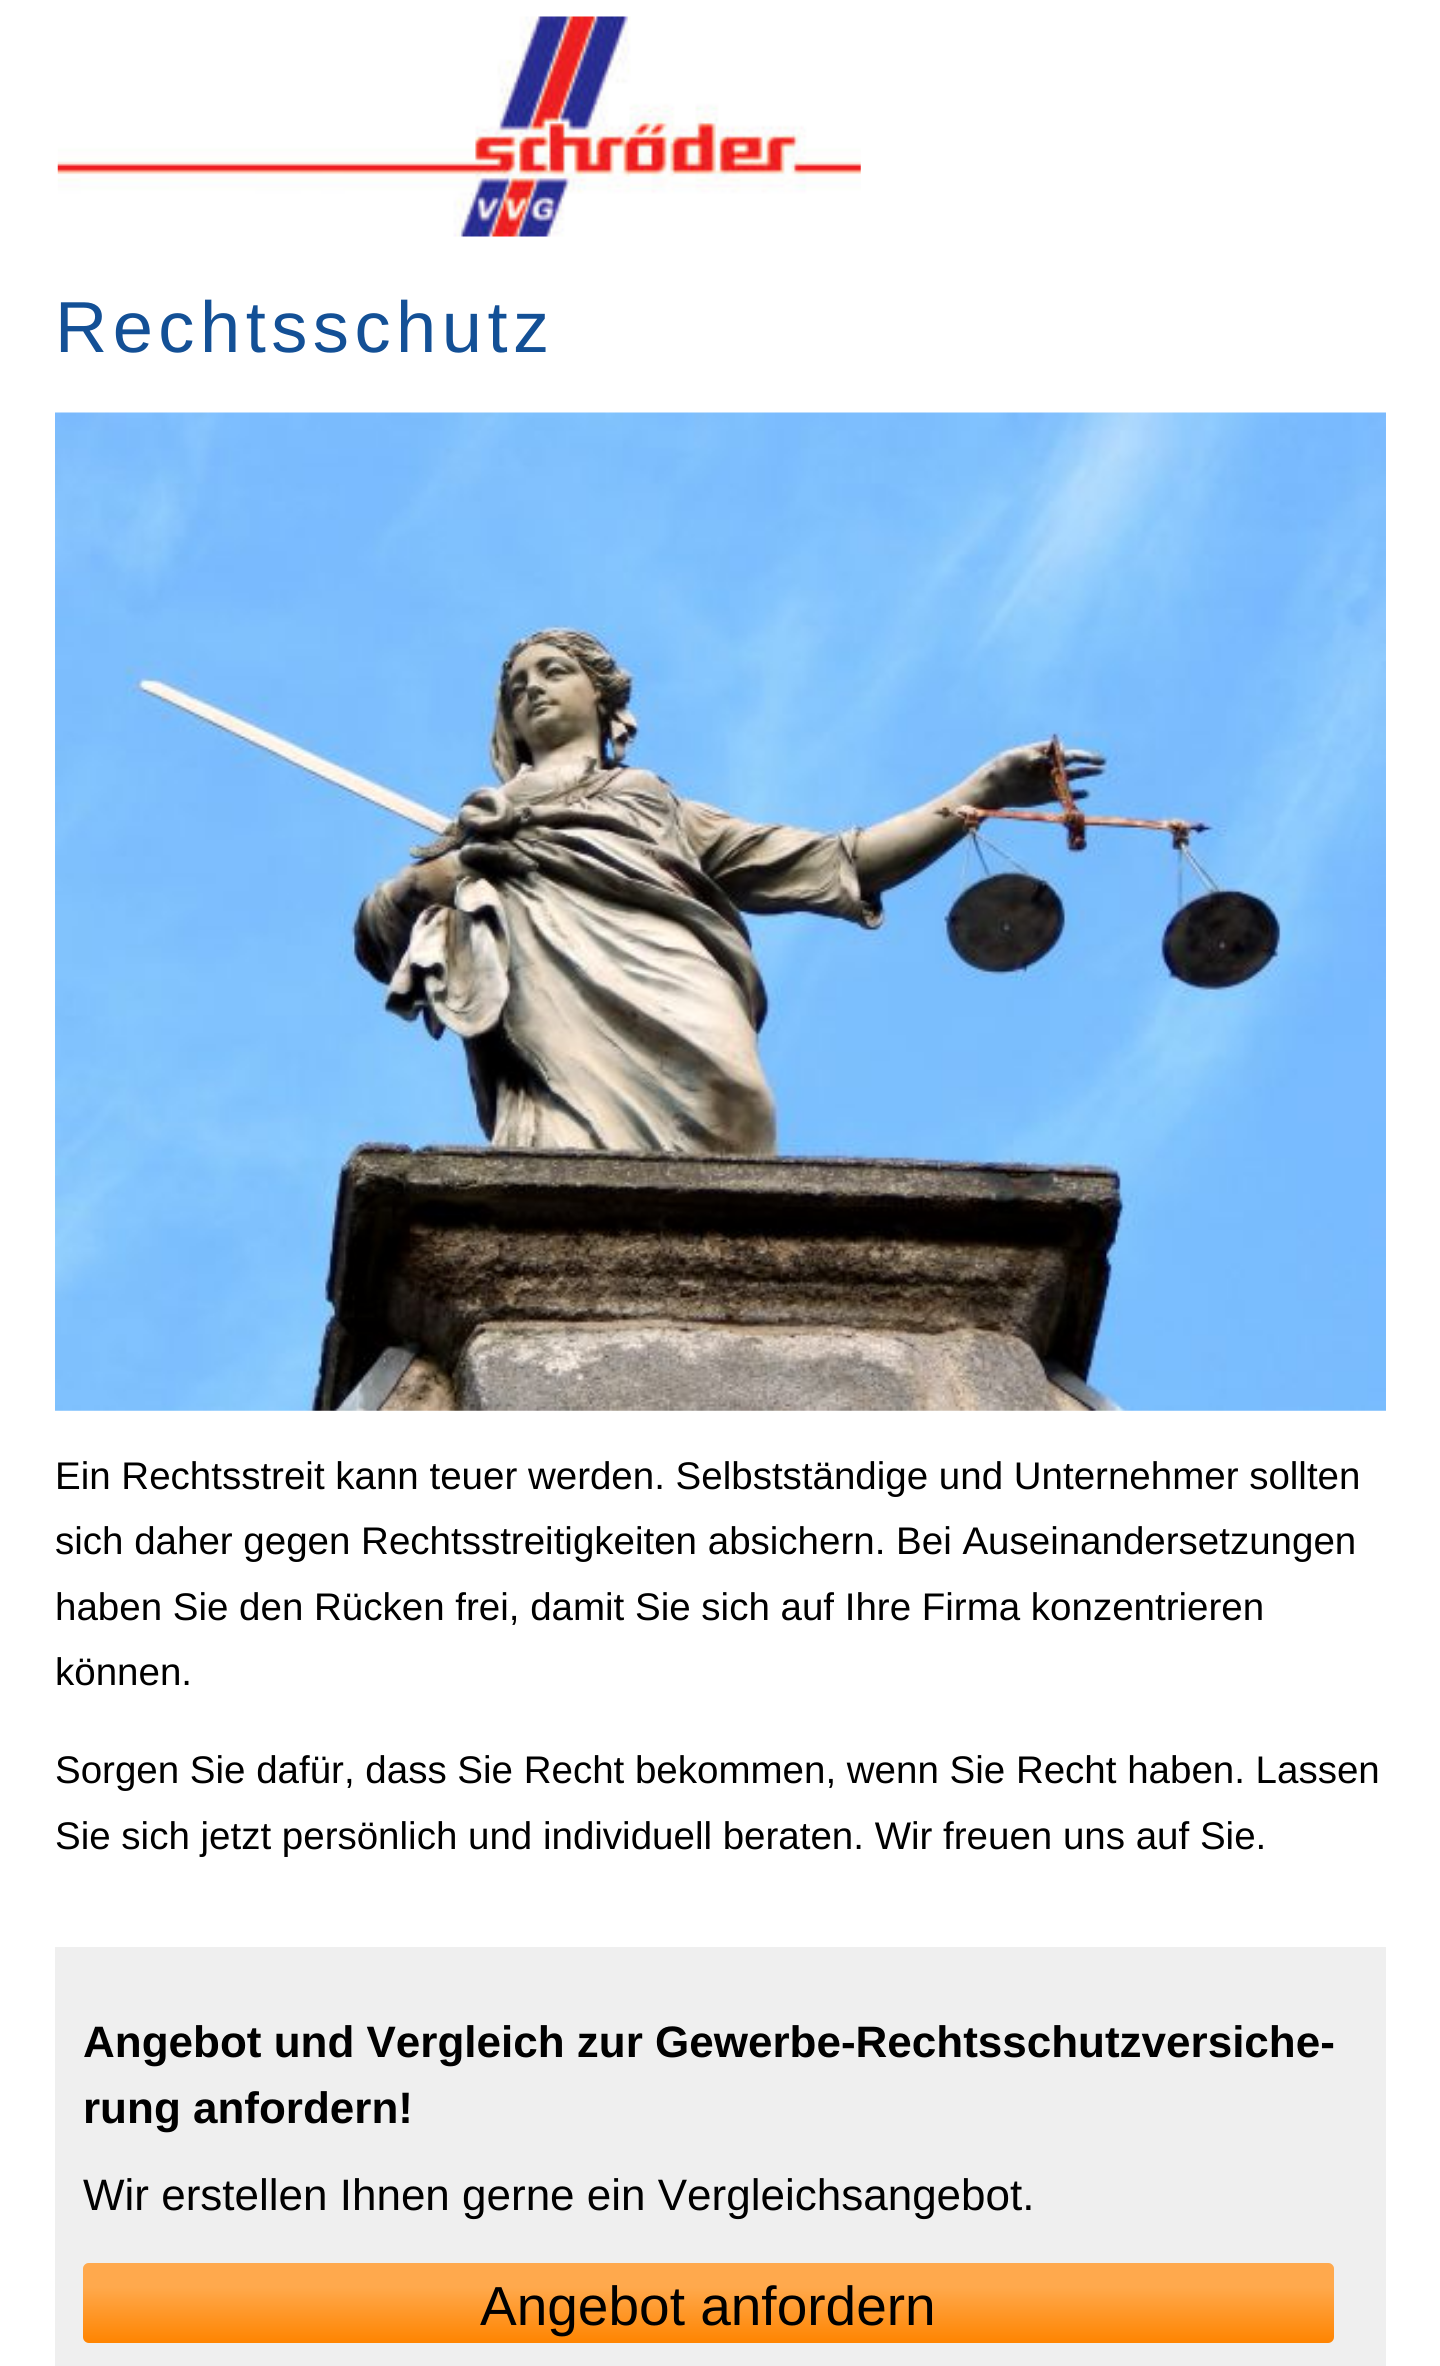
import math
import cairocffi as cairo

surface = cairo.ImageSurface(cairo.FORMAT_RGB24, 1440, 2366)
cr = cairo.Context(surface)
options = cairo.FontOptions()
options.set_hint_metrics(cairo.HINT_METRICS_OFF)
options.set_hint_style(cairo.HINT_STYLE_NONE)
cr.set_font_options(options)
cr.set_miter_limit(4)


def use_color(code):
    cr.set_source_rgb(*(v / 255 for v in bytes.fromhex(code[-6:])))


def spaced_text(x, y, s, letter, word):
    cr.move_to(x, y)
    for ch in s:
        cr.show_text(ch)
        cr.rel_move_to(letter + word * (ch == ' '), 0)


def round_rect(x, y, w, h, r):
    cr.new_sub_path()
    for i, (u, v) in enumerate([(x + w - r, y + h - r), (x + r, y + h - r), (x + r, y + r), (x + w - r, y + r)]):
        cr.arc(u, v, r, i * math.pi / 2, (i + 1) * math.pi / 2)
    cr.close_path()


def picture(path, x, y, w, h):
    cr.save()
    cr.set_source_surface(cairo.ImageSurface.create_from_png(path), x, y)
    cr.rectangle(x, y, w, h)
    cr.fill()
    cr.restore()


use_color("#ffffff")
cr.paint()
picture("img1.png", 57, 16, 804, 221)
cr.select_font_face("Liberation Sans")
cr.set_font_size(72.25)
use_color("#135096")
spaced_text(55, 352, "Rechtsschutz", 5.5, 0)
picture("img2.png", 55, 412, 1331, 999)
cr.set_font_size(38.5)
use_color("#000000")
cr.move_to(55, 1489)
cr.show_text("Ein Rechtsstreit kann teuer werden. Selbstständige und Unternehmer sollten")
cr.move_to(55, 1554)
cr.show_text("sich daher gegen Rechtsstreitigkeiten absichern. Bei Auseinandersetzungen")
cr.move_to(55, 1620)
cr.show_text("haben Sie den Rücken frei, damit Sie sich auf Ihre Firma konzentrieren")
cr.move_to(55, 1685)
cr.show_text("können.")
cr.move_to(55, 1783)
cr.show_text("Sorgen Sie dafür, dass Sie Recht bekommen, wenn Sie Recht haben. Lassen")
cr.move_to(55, 1849)
cr.show_text("Sie sich jetzt persönlich und individuell beraten. Wir freuen uns auf Sie.")
use_color("#efefef")
cr.rectangle(55, 1947, 1331, 419)
cr.fill()
cr.select_font_face("Liberation Sans", cairo.FONT_SLANT_NORMAL, cairo.FONT_WEIGHT_BOLD)
cr.set_font_size(44)
use_color("#000000")
cr.move_to(83, 2057)
cr.show_text("Angebot und Vergleich zur Gewerbe-Rechtsschutzversiche-")
cr.move_to(83, 2123)
cr.show_text("rung anfordern!")
cr.select_font_face("Liberation Sans")
cr.move_to(83, 2210)
cr.show_text("Wir erstellen Ihnen gerne ein Vergleichsangebot.")
use_color("#ff8400")
round_rect(83, 2263, 1251, 80, 6)
cr.fill()
gradient = cairo.LinearGradient(708, 2263, 708, 2343)
gradient.add_color_stop_rgba(0.3, 1, 1, 1, 0.3)
gradient.add_color_stop_rgba(1, 1, 1, 1, 0)
cr.set_source(gradient)
round_rect(83, 2263, 1251, 80, 6)
cr.fill()
cr.set_font_size(55)
use_color("#000000")
cr.move_to(480, 2325)
cr.show_text("Angebot anfordern")
surface.write_to_png("result.png")
